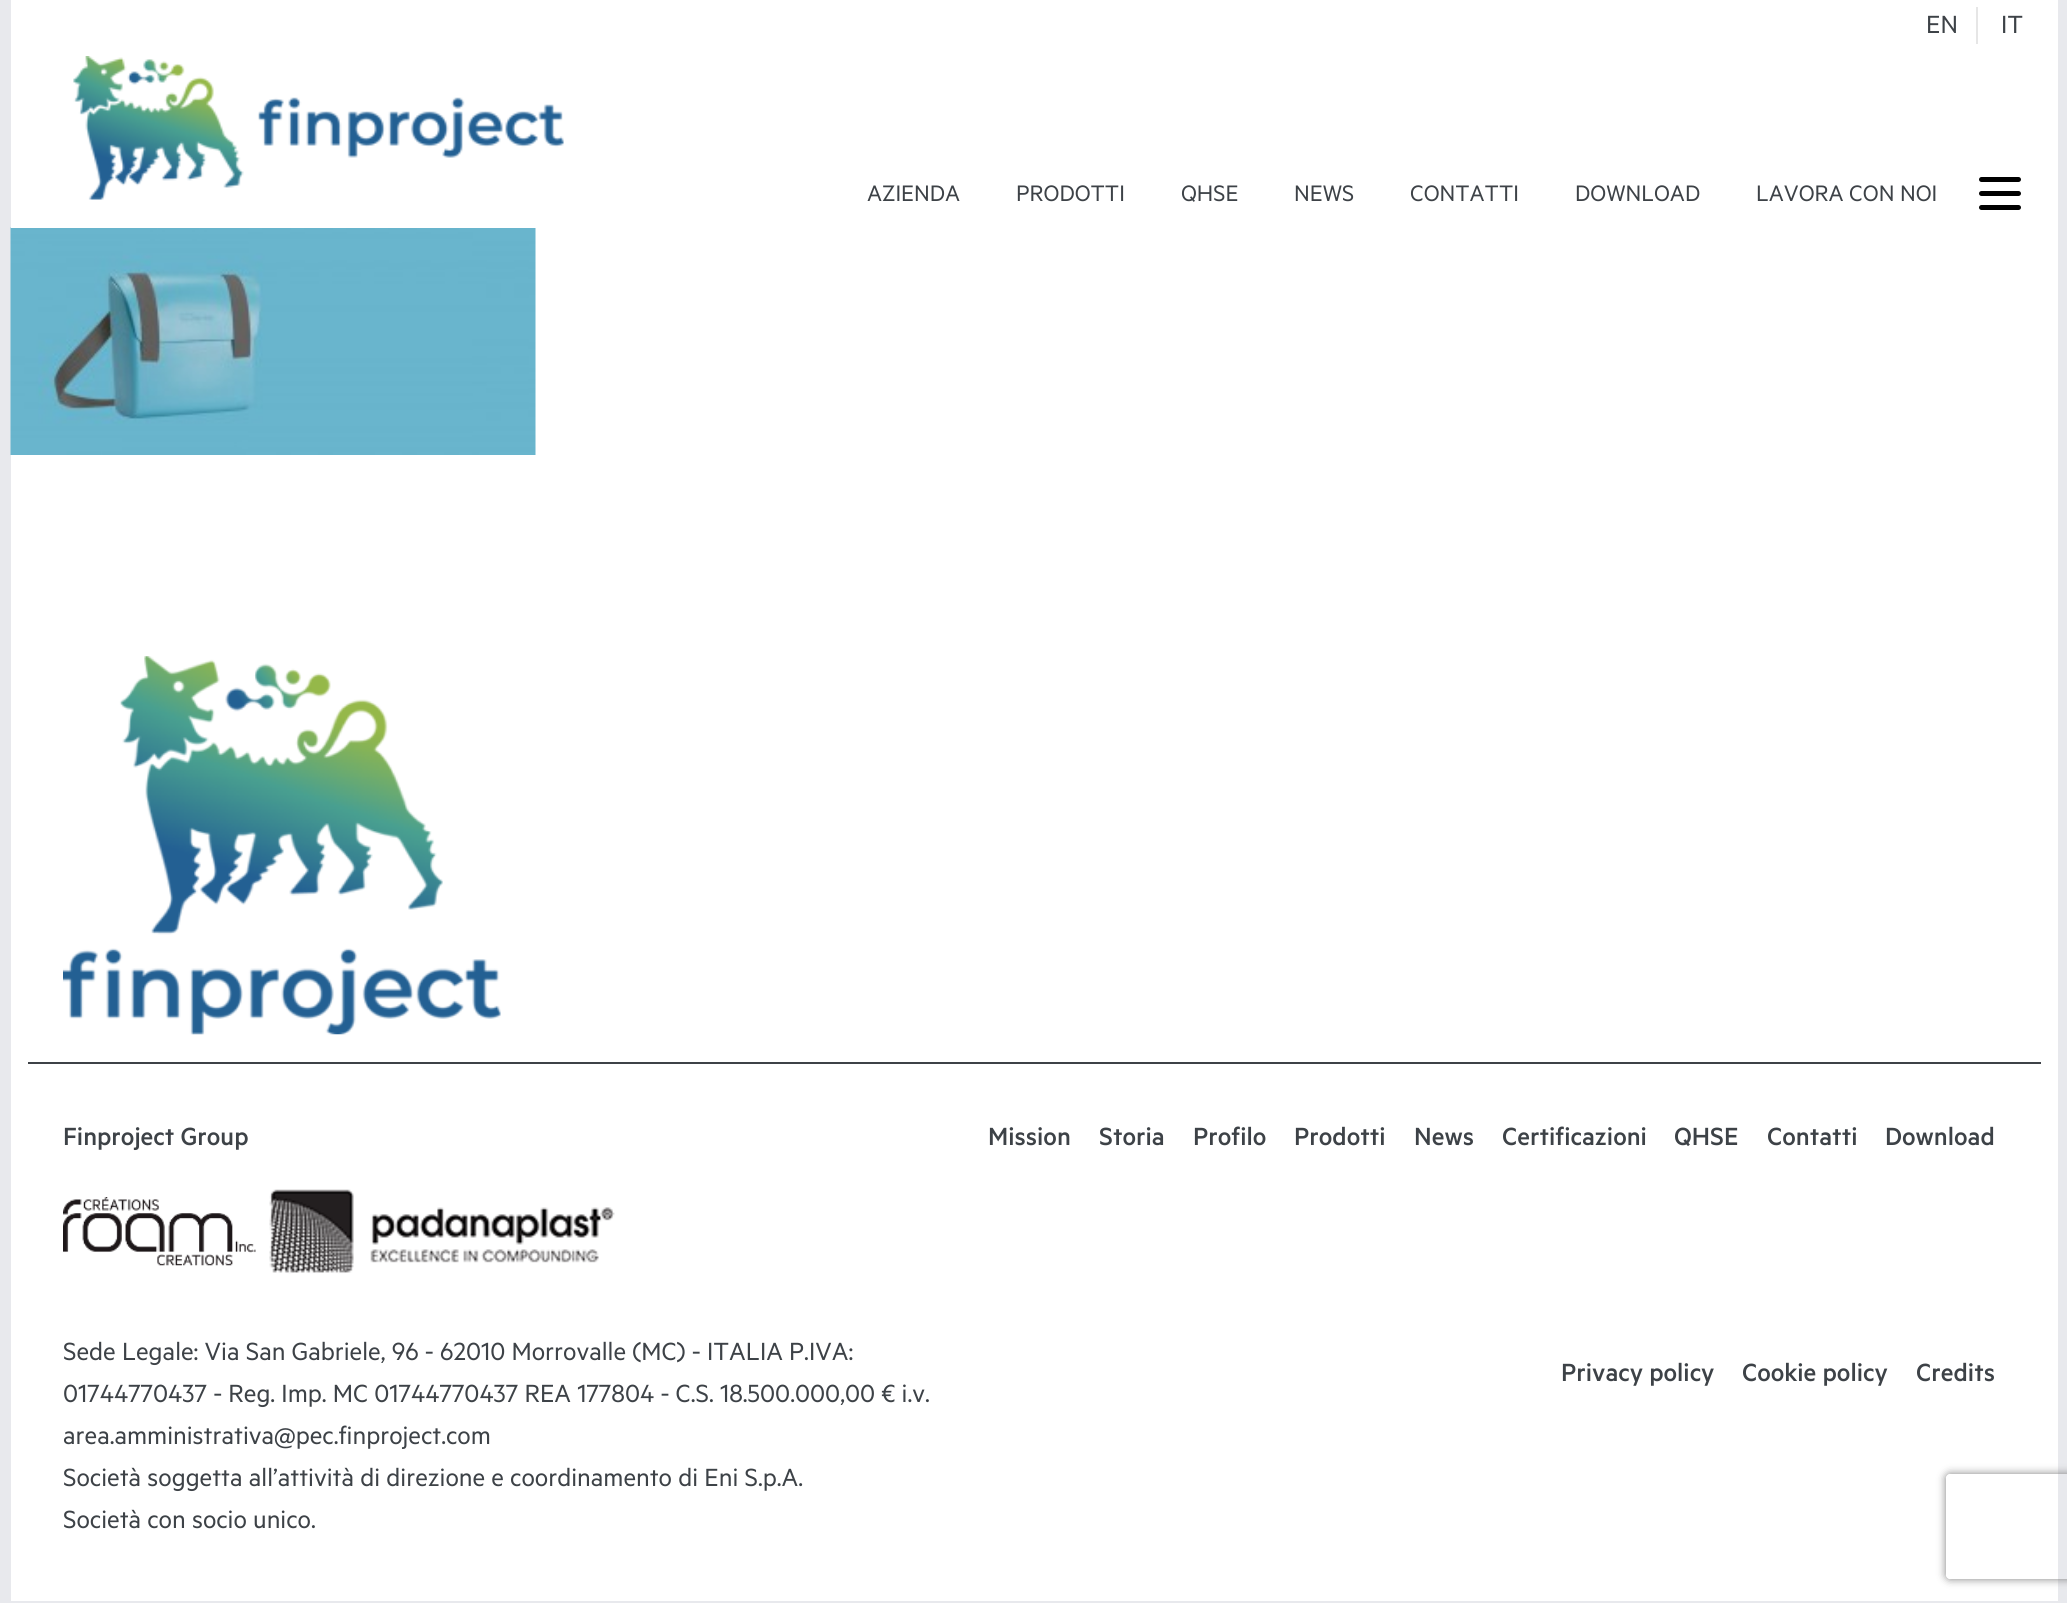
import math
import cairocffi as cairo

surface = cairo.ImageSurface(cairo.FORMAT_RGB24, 2067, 1603)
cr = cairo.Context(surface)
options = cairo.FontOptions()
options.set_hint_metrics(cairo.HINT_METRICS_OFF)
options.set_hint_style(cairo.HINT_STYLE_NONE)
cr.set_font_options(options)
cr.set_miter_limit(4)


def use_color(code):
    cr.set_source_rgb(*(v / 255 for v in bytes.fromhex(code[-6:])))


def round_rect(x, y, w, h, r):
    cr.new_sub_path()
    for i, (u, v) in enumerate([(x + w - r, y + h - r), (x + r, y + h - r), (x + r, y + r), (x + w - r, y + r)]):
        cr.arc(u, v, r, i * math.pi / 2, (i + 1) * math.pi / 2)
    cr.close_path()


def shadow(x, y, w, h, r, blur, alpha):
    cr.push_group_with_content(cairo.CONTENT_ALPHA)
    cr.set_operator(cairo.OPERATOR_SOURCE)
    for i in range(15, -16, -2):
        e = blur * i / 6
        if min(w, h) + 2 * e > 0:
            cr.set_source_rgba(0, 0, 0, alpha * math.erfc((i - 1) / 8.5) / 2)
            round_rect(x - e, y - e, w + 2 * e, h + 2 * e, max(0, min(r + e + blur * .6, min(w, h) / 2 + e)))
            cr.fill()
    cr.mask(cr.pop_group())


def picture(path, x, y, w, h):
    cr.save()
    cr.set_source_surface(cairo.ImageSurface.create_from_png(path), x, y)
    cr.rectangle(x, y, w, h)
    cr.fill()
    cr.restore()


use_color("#e8e9ed")
cr.paint()
use_color("#ffffff")
cr.rectangle(11, 228, 2047, 1373)
cr.fill()
picture("img2.png", 10, 227, 526, 228)
cr.rectangle(11, 0, 2047, 228)
cr.fill()
cr.select_font_face("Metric")
cr.set_font_size(28)
use_color("#3d4247")
cr.move_to(1926, 33)
cr.show_text("EN")
use_color("#e6e6e6")
cr.rectangle(1976, 7, 2, 37)
cr.fill()
use_color("#3d4247")
cr.move_to(2001, 33)
cr.show_text("IT")
picture("img1.png", 73, 56, 491, 144)
cr.set_font_size(25.25)
cr.move_to(867, 201)
cr.show_text("AZIENDA")
cr.move_to(1016, 201)
cr.show_text("PRODOTTI")
cr.move_to(1181, 201)
cr.show_text("QHSE")
cr.move_to(1294, 201)
cr.show_text("NEWS")
cr.move_to(1410, 201)
cr.show_text("CONTATTI")
cr.move_to(1575, 201)
cr.show_text("DOWNLOAD")
cr.move_to(1756, 201)
cr.show_text("LAVORA CON NOI")
use_color("#000000")
round_rect(1979, 205, 42, 5, 2.5)
cr.fill()
round_rect(1979, 177, 42, 5, 2.5)
cr.fill()
round_rect(1979, 191, 42, 5, 2.5)
cr.fill()
picture("img3.png", 63, 656, 438, 379)
use_color("#3d4247")
cr.rectangle(28, 1062, 2013, 2)
cr.fill()
cr.select_font_face("Metric Medium")
cr.set_font_size(28)
cr.move_to(63, 1145)
cr.show_text("Finproject Group")
cr.move_to(988, 1145)
cr.show_text("Mission")
cr.move_to(1099, 1145)
cr.show_text("Storia")
cr.move_to(1193, 1145)
cr.show_text("Profilo")
cr.move_to(1294, 1145)
cr.show_text("Prodotti")
cr.move_to(1414, 1145)
cr.show_text("News")
cr.move_to(1502, 1145)
cr.show_text("Certificazioni")
cr.move_to(1674, 1145)
cr.show_text("QHSE")
cr.move_to(1767, 1145)
cr.show_text("Contatti")
cr.move_to(1885, 1145)
cr.show_text("Download")
picture("img4.png", 63, 1197, 193, 69)
picture("img5.png", 269, 1189, 346, 85)
cr.select_font_face("Metric")
cr.move_to(63, 1360)
cr.show_text("Sede Legale: Via San Gabriele, 96 - 62010 Morrovalle (MC) - ITALIA P.IVA:")
cr.move_to(63, 1402)
cr.show_text("01744770437 - Reg. Imp. MC 01744770437 REA 177804 - C.S. 18.500.000,00 € i.v.")
cr.move_to(63, 1444)
cr.show_text("area.amministrativa@pec.finproject.com")
cr.move_to(63, 1486)
cr.show_text("Società soggetta all’attività di direzione e coordinamento di Eni S.p.A.")
cr.move_to(63, 1528)
cr.show_text("Società con socio unico.")
cr.select_font_face("Metric Medium")
cr.move_to(1561, 1381)
cr.show_text("Privacy policy")
cr.move_to(1742, 1381)
cr.show_text("Cookie policy")
cr.move_to(1916, 1381)
cr.show_text("Credits")
cr.save()
cr.set_fill_rule(cairo.FILL_RULE_EVEN_ODD)
cr.new_path()
cr.move_to(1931, 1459)
cr.line_to(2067, 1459)
cr.line_to(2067, 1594)
cr.line_to(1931, 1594)
cr.close_path()
cr.move_to(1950, 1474)
cr.line_to(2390, 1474)
cr.curve_to(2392, 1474, 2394, 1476, 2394, 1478)
cr.line_to(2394, 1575)
cr.curve_to(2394, 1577, 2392, 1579, 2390, 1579)
cr.line_to(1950, 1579)
cr.curve_to(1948, 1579, 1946, 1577, 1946, 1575)
cr.line_to(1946, 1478)
cr.curve_to(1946, 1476, 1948, 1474, 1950, 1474)
cr.close_path()
cr.clip()
use_color("#808080")
shadow(1946, 1474, 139, 105, 4, 4.5, 1)
cr.restore()
surface.write_to_png("result.png")
